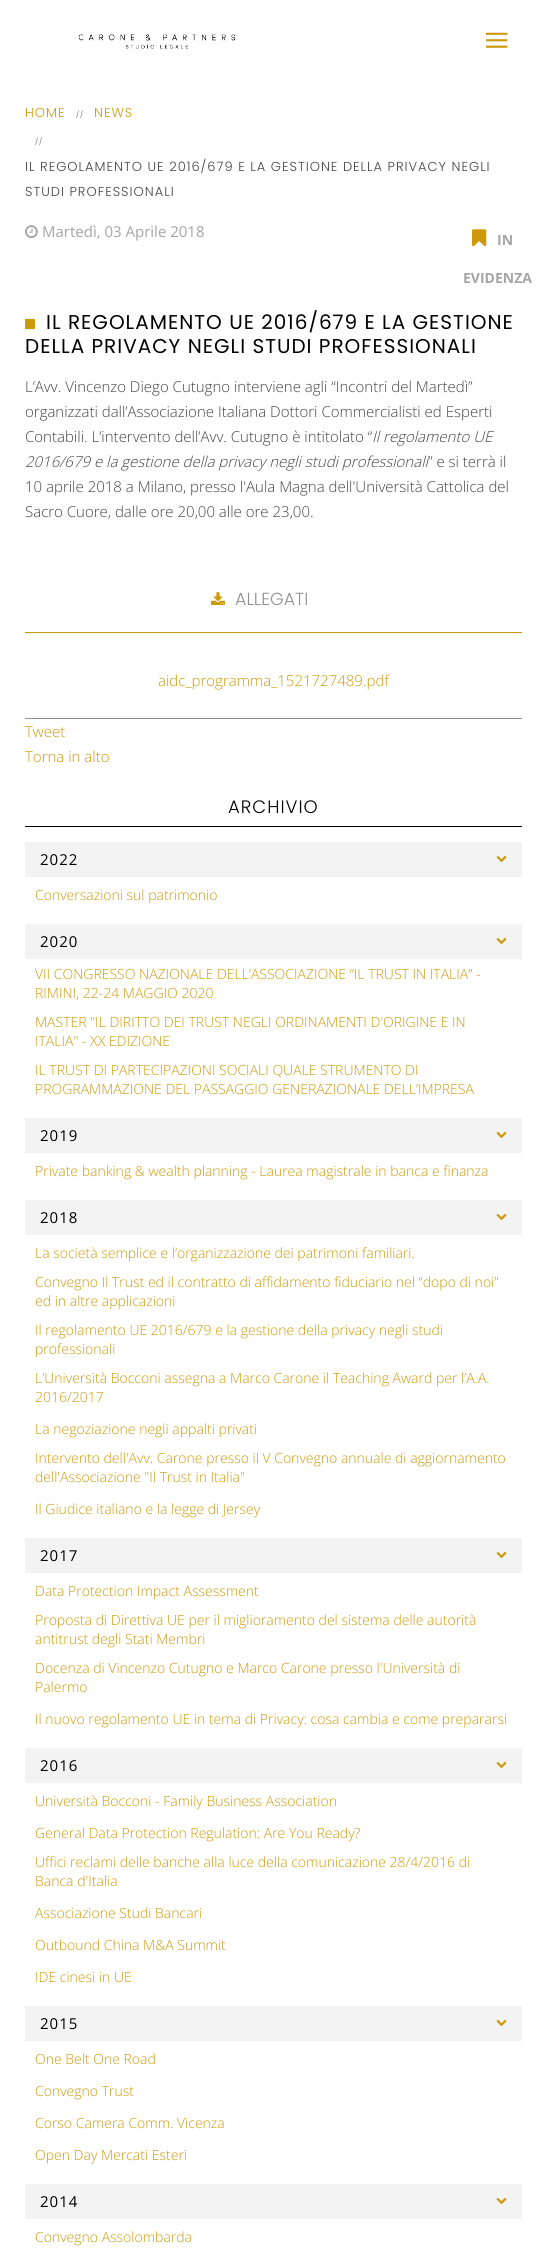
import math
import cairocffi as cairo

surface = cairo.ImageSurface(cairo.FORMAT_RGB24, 547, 2264)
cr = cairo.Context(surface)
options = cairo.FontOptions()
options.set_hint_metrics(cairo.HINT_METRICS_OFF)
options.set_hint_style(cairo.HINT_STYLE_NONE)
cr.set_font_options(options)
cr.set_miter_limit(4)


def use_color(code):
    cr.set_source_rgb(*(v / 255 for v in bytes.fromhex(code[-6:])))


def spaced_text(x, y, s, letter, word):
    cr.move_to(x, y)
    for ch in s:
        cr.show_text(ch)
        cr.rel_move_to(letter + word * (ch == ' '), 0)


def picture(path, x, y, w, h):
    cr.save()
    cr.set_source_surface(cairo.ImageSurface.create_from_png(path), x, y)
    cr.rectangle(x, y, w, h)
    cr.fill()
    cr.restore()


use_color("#ffffff")
cr.paint()
picture("img1.png", 78, 34, 158, 15)
picture("img2.png", 486, 32, 22, 16)
cr.select_font_face("Poppins Light")
cr.set_font_size(13)
use_color("#cd990b")
spaced_text(25, 117, "HOME", 1, 0)
cr.set_font_size(7)
use_color("#504e75")
spaced_text(76, 117, "//", 1, 0)
cr.set_font_size(13)
use_color("#cd990b")
spaced_text(94, 117, "NEWS", 1, 0)
cr.set_font_size(7)
use_color("#504e75")
spaced_text(35, 144, "//", 1, 0)
cr.set_font_size(13)
use_color("#444444")
spaced_text(25, 171, "IL REGOLAMENTO UE 2016/679 E LA GESTIONE DELLA PRIVACY NEGLI", 1, 0)
spaced_text(25, 196, "STUDI PROFESSIONALI", 1, 0)
picture("img3.png", 25, 225, 13, 13)
cr.select_font_face("Open Sans")
cr.set_font_size(15)
use_color("#a5a5a5")
cr.move_to(42, 237)
cr.show_text("Martedì, 03 Aprile 2018")
picture("img4.png", 472, 229, 15, 18)
cr.select_font_face("Open Sans", cairo.FONT_SLANT_NORMAL, cairo.FONT_WEIGHT_BOLD)
cr.set_font_size(14)
cr.move_to(497, 245)
cr.show_text("IN")
cr.move_to(463, 283)
cr.show_text("EVIDENZA")
use_color("#ce9a0b")
cr.rectangle(25, 319, 10, 10)
cr.fill()
cr.select_font_face("Poppins")
cr.set_font_size(20)
use_color("#000000")
spaced_text(46, 329, "IL REGOLAMENTO UE 2016/679 E LA GESTIONE", 1, 0)
spaced_text(25, 353, "DELLA PRIVACY NEGLI STUDI PROFESSIONALI", 1, 0)
cr.select_font_face("Open Sans Light")
cr.set_font_size(15)
use_color("#444444")
cr.move_to(25, 392)
cr.show_text("L’Avv. Vincenzo Diego Cutugno interviene agli “Incontri del Martedì”")
cr.move_to(25, 417)
cr.show_text("organizzati dall’Associazione Italiana Dottori Commercialisti ed Esperti")
cr.move_to(25, 442)
cr.show_text("Contabili. L’intervento dell’Avv. Cutugno è intitolato “")
cr.select_font_face("Open Sans Light", cairo.FONT_SLANT_ITALIC)
cr.move_to(372, 442)
cr.show_text("Il regolamento UE")
cr.move_to(25, 467)
cr.show_text("2016/679 e la gestione della privacy negli studi professionali")
cr.select_font_face("Open Sans Light")
cr.move_to(428, 467)
cr.show_text("” e si terrà il")
cr.move_to(25, 492)
cr.show_text("10 aprile 2018 a Milano, presso l'Aula Magna dell'Università Cattolica del")
cr.move_to(25, 517)
cr.show_text("Sacro Cuore, dalle ore 20,00 alle ore 23,00.")
use_color("#cd990b")
cr.rectangle(25, 632, 497, 1)
cr.fill()
picture("img5.png", 211, 592, 14, 13)
cr.select_font_face("Poppins Light")
cr.set_font_size(17.5)
use_color("#909090")
cr.move_to(235, 605)
cr.show_text("ALLEGATI")
cr.select_font_face("Open Sans Light")
cr.set_font_size(15)
use_color("#cd990b")
cr.move_to(158, 686)
cr.show_text("aidc_programma_1521727489.pdf")
use_color("#909090")
cr.rectangle(25, 718, 497, 1)
cr.fill()
use_color("#cd990b")
cr.move_to(25, 737)
cr.show_text("Tweet")
cr.move_to(25, 762)
cr.show_text("Torna in alto")
use_color("#000000")
cr.rectangle(25, 826, 497, 1)
cr.fill()
cr.select_font_face("Poppins Light")
cr.set_font_size(18)
spaced_text(228, 813, "ARCHIVIO", 1, 0)
use_color("#f3f3f3")
cr.rectangle(25, 842, 497, 35)
cr.fill()
cr.select_font_face("Open Sans")
cr.set_font_size(15)
use_color("#000000")
spaced_text(40, 865, "2022", 1, 0)
picture("img6.png", 496, 855, 11, 8)
cr.select_font_face("Open Sans Light")
cr.set_font_size(14)
use_color("#cd990b")
cr.move_to(35, 900)
cr.show_text("Conversazioni sul patrimonio")
use_color("#f3f3f3")
cr.rectangle(25, 924, 497, 35)
cr.fill()
cr.select_font_face("Open Sans")
cr.set_font_size(15)
use_color("#000000")
spaced_text(40, 947, "2020", 1, 0)
picture("img6.png", 496, 937, 11, 8)
cr.select_font_face("Open Sans Light")
cr.set_font_size(14)
use_color("#cd990b")
cr.move_to(35, 979)
cr.show_text("VII CONGRESSO NAZIONALE DELL’ASSOCIAZIONE “IL TRUST IN ITALIA” -")
cr.move_to(35, 998)
cr.show_text("RIMINI, 22-24 MAGGIO 2020")
cr.move_to(35, 1027)
cr.show_text("MASTER \"IL DIRITTO DEI TRUST NEGLI ORDINAMENTI D'ORIGINE E IN")
cr.move_to(35, 1046)
cr.show_text("ITALIA\" - XX EDIZIONE")
cr.move_to(35, 1075)
cr.show_text("IL TRUST DI PARTECIPAZIONI SOCIALI QUALE STRUMENTO DI")
cr.move_to(35, 1094)
cr.show_text("PROGRAMMAZIONE DEL PASSAGGIO GENERAZIONALE DELL’IMPRESA")
use_color("#f3f3f3")
cr.rectangle(25, 1118, 497, 35)
cr.fill()
cr.select_font_face("Open Sans")
cr.set_font_size(15)
use_color("#000000")
spaced_text(40, 1141, "2019", 1, 0)
picture("img6.png", 496, 1131, 11, 8)
cr.select_font_face("Open Sans Light")
cr.set_font_size(14)
use_color("#cd990b")
cr.move_to(35, 1176)
cr.show_text("Private banking & wealth planning - Laurea magistrale in banca e finanza")
use_color("#f3f3f3")
cr.rectangle(25, 1200, 497, 35)
cr.fill()
cr.select_font_face("Open Sans")
cr.set_font_size(15)
use_color("#000000")
spaced_text(40, 1223, "2018", 1, 0)
picture("img6.png", 496, 1213, 11, 8)
cr.select_font_face("Open Sans Light")
cr.set_font_size(14)
use_color("#cd990b")
cr.move_to(35, 1258)
cr.show_text("La società semplice e l’organizzazione dei patrimoni familiari.")
cr.move_to(35, 1287)
cr.show_text("Convegno Il Trust ed il contratto di affidamento fiduciario nel “dopo di noi”")
cr.move_to(35, 1306)
cr.show_text("ed in altre applicazioni")
cr.move_to(35, 1335)
cr.show_text("Il regolamento UE 2016/679 e la gestione della privacy negli studi")
cr.move_to(35, 1354)
cr.show_text("professionali")
cr.move_to(35, 1383)
cr.show_text("L’Università Bocconi assegna a Marco Carone il Teaching Award per l’A.A.")
cr.move_to(35, 1402)
cr.show_text("2016/2017")
cr.move_to(35, 1434)
cr.show_text("La negoziazione negli appalti privati")
cr.move_to(35, 1463)
cr.show_text("Intervento dell'Avv. Carone presso il V Convegno annuale di aggiornamento")
cr.move_to(35, 1482)
cr.show_text("dell'Associazione \"Il Trust in Italia\"")
cr.move_to(35, 1514)
cr.show_text("Il Giudice italiano e la legge di Jersey")
use_color("#f3f3f3")
cr.rectangle(25, 1538, 497, 35)
cr.fill()
cr.select_font_face("Open Sans")
cr.set_font_size(15)
use_color("#000000")
spaced_text(40, 1561, "2017", 1, 0)
picture("img6.png", 496, 1551, 11, 8)
cr.select_font_face("Open Sans Light")
cr.set_font_size(14)
use_color("#cd990b")
cr.move_to(35, 1596)
cr.show_text("Data Protection Impact Assessment")
cr.move_to(35, 1625)
cr.show_text("Proposta di Direttiva UE per il miglioramento del sistema delle autorità")
cr.move_to(35, 1644)
cr.show_text("antitrust degli Stati Membri")
cr.move_to(35, 1673)
cr.show_text("Docenza di Vincenzo Cutugno e Marco Carone presso l'Università di")
cr.move_to(35, 1692)
cr.show_text("Palermo")
cr.move_to(35, 1724)
cr.show_text("Il nuovo regolamento UE in tema di Privacy: cosa cambia e come prepararsi")
use_color("#f3f3f3")
cr.rectangle(25, 1748, 497, 35)
cr.fill()
cr.select_font_face("Open Sans")
cr.set_font_size(15)
use_color("#000000")
spaced_text(40, 1771, "2016", 1, 0)
picture("img6.png", 496, 1761, 11, 8)
cr.select_font_face("Open Sans Light")
cr.set_font_size(14)
use_color("#cd990b")
cr.move_to(35, 1806)
cr.show_text("Università Bocconi - Family Business Association")
cr.move_to(35, 1838)
cr.show_text("General Data Protection Regulation: Are You Ready?")
cr.move_to(35, 1867)
cr.show_text("Uffici reclami delle banche alla luce della comunicazione 28/4/2016 di")
cr.move_to(35, 1886)
cr.show_text("Banca d'Italia")
cr.move_to(35, 1918)
cr.show_text("Associazione Studi Bancari")
cr.move_to(35, 1950)
cr.show_text("Outbound China M&A Summit")
cr.move_to(35, 1982)
cr.show_text("IDE cinesi in UE")
use_color("#f3f3f3")
cr.rectangle(25, 2006, 497, 35)
cr.fill()
cr.select_font_face("Open Sans")
cr.set_font_size(15)
use_color("#000000")
spaced_text(40, 2029, "2015", 1, 0)
picture("img6.png", 496, 2019, 11, 8)
cr.select_font_face("Open Sans Light")
cr.set_font_size(14)
use_color("#cd990b")
cr.move_to(35, 2064)
cr.show_text("One Belt One Road")
cr.move_to(35, 2096)
cr.show_text("Convegno Trust")
cr.move_to(35, 2128)
cr.show_text("Corso Camera Comm. Vicenza")
cr.move_to(35, 2160)
cr.show_text("Open Day Mercati Esteri")
use_color("#f3f3f3")
cr.rectangle(25, 2184, 497, 35)
cr.fill()
cr.select_font_face("Open Sans")
cr.set_font_size(15)
use_color("#000000")
spaced_text(40, 2207, "2014", 1, 0)
picture("img6.png", 496, 2197, 11, 8)
cr.select_font_face("Open Sans Light")
cr.set_font_size(14)
use_color("#cd990b")
cr.move_to(35, 2242)
cr.show_text("Convegno Assolombarda")
surface.write_to_png("result.png")
